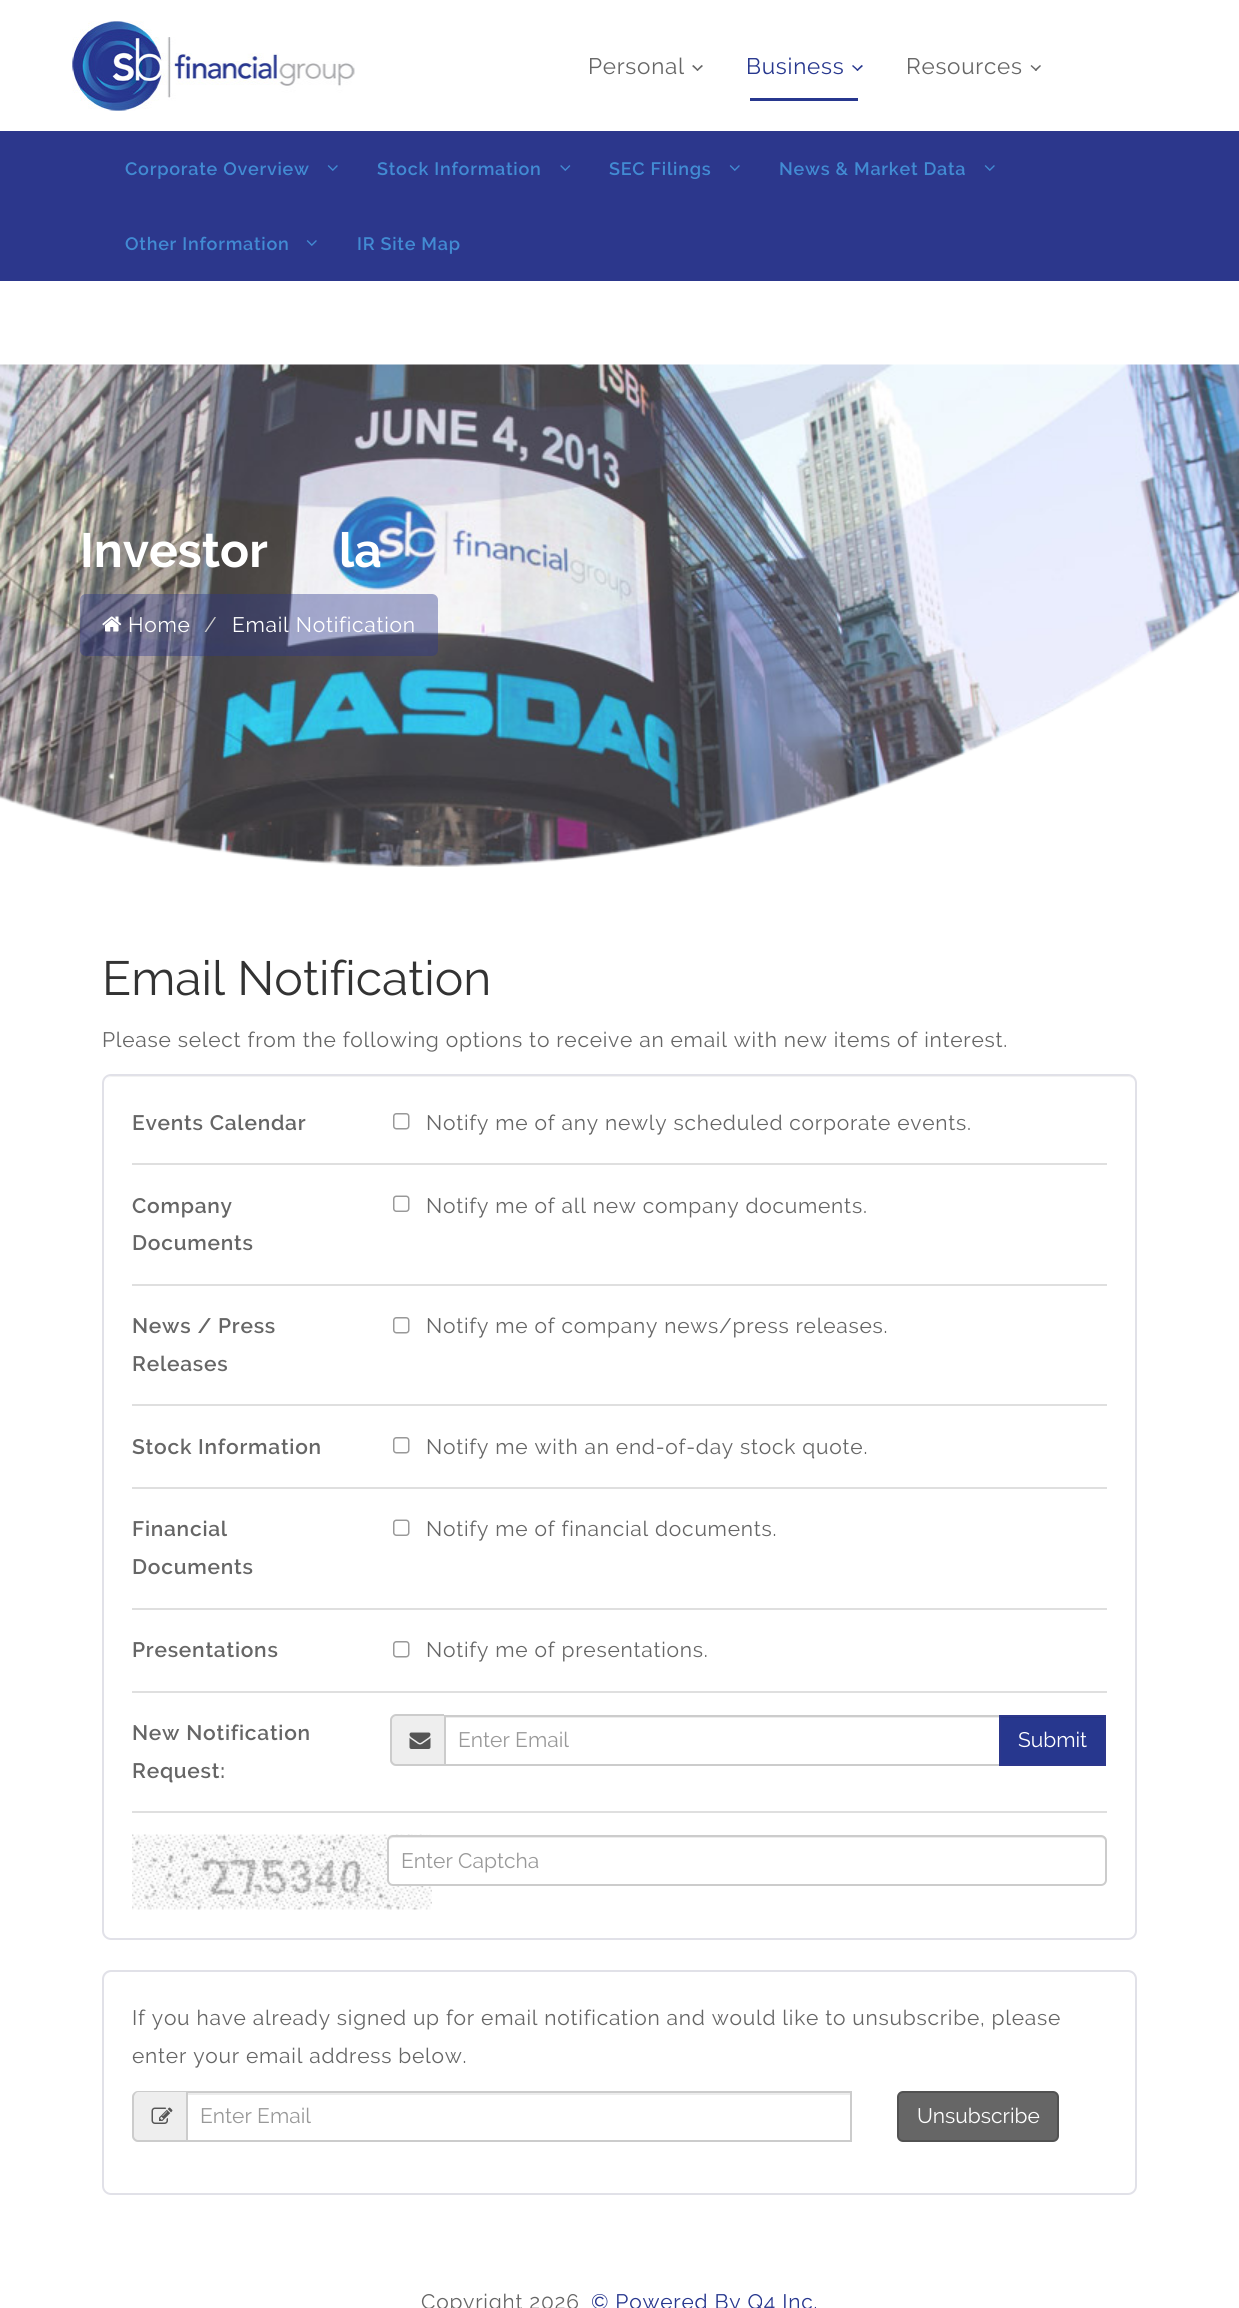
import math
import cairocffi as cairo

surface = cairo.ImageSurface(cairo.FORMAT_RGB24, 1239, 2308)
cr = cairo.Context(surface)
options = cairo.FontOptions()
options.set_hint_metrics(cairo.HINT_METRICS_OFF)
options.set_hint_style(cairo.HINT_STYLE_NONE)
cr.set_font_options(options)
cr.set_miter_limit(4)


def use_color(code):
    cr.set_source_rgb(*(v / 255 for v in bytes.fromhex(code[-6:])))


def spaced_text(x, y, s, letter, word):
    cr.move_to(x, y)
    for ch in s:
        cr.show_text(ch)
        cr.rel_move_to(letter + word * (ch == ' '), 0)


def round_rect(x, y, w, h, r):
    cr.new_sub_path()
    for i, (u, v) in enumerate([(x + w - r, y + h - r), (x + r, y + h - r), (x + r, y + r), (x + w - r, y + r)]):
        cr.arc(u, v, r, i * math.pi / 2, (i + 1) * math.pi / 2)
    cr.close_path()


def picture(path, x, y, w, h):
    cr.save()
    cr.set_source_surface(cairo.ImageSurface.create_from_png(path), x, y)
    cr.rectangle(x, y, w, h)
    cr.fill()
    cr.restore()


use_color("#ffffff")
cr.paint()
picture("img1.png", 72, 21, 283, 90)
cr.select_font_face("Raleway")
cr.set_font_size(22.5)
use_color("#666666")
spaced_text(588, 74, "Personal", 0.75, 0)
cr.new_path()
cr.move_to(701.5, 65)
cr.line_to(703, 66)
cr.line_to(697.5, 71)
cr.line_to(696.5, 70)
cr.close_path()
cr.fill()
cr.new_path()
cr.move_to(693.5, 65)
cr.line_to(698.5, 70)
cr.line_to(697.5, 71)
cr.line_to(692, 66)
cr.close_path()
cr.fill()
use_color("#27378e")
spaced_text(746, 74, "Business", 0.75, 0)
cr.new_path()
cr.move_to(861.5, 65)
cr.line_to(863, 66)
cr.line_to(857.5, 71)
cr.line_to(856.5, 70)
cr.close_path()
cr.fill()
cr.new_path()
cr.move_to(853, 65)
cr.line_to(858.5, 70)
cr.line_to(857.5, 71)
cr.line_to(852, 66)
cr.close_path()
cr.fill()
cr.rectangle(750, 98, 108, 3)
cr.fill()
use_color("#666666")
spaced_text(906, 74, "Resources", 0.75, 0)
cr.new_path()
cr.move_to(1040, 65)
cr.line_to(1041, 66)
cr.line_to(1036, 71)
cr.line_to(1034.5, 70)
cr.close_path()
cr.fill()
cr.new_path()
cr.move_to(1031.5, 65)
cr.line_to(1037, 70)
cr.line_to(1036, 71)
cr.line_to(1030.5, 66)
cr.close_path()
cr.fill()
use_color("#2c378c")
cr.rectangle(0, 131, 1239, 150)
cr.fill()
cr.select_font_face("Raleway SemiBold")
cr.set_font_size(18)
use_color("#428bd3")
spaced_text(125, 175, "Corporate Overview", 0.75, 0)
picture("img2.png", 327, 165, 11, 6)
spaced_text(377, 175, "Stock Information", 0.75, 0)
picture("img3.png", 560, 165, 11, 6)
spaced_text(609, 175, "SEC Filings", 0.75, 0)
picture("img2.png", 729, 165, 11, 6)
spaced_text(779, 175, "News & Market Data", 0.75, 0)
picture("img2.png", 984, 165, 11, 6)
spaced_text(125, 250, "Other Information", 0.75, 0)
picture("img2.png", 306, 240, 11, 6)
spaced_text(357, 250, "IR Site Map", 0.75, 0)
picture("img4.png", 0, 364, 1239, 503)
cr.select_font_face("Raleway", cairo.FONT_SLANT_NORMAL, cairo.FONT_WEIGHT_BOLD)
cr.set_font_size(48)
use_color("#ffffff")
cr.move_to(80, 567)
cr.show_text("Investor")
cr.move_to(339, 567)
cr.show_text("la")
cr.set_source_rgba(0.173, 0.216, 0.549, 0.4)
round_rect(80, 594, 358, 62, 6)
cr.fill()
picture("img5.png", 102, 616, 20, 16)
cr.select_font_face("Raleway")
cr.set_font_size(21)
use_color("#ffffff")
spaced_text(128, 632, "Home", 0.75, 0)
use_color("#cccccc")
spaced_text(204, 632, "/", 0.75, 0)
use_color("#ffffff")
spaced_text(232, 632, "Email Notification", 0.75, 0)
cr.set_font_size(48)
use_color("#333333")
cr.move_to(102, 995)
cr.show_text("Email Notification")
cr.set_font_size(21)
use_color("#666666")
spaced_text(102, 1047, "Please select from the following options to receive an email with new items of interest.", 0.75, 0)
use_color("#f2f2f2")
cr.new_path()
cr.move_to(111, 1077)
cr.line_to(1128, 1077)
cr.curve_to(1132, 1077, 1136, 1080, 1136, 1084)
cr.curve_to(1136, 1080, 1132, 1076, 1128, 1076)
cr.line_to(112, 1076)
cr.curve_to(108, 1076, 104, 1080, 104, 1084)
cr.curve_to(104, 1080, 107, 1077, 111, 1077)
cr.close_path()
cr.fill()
round_rect(103, 1075, 1033, 864, 8)
use_color("#e1e1e8")
cr.stroke()
cr.select_font_face("Raleway SemiBold")
use_color("#666666")
spaced_text(132, 1130, "Events Calendar", 0.75, 0)
picture("img6.png", 393, 1113, 17, 17)
cr.select_font_face("Raleway")
spaced_text(426, 1130, "Notify me of any newly scheduled corporate events.", 0.75, 0)
use_color("#dfdfdf")
cr.rectangle(132, 1163, 975, 2)
cr.fill()
cr.select_font_face("Raleway SemiBold")
use_color("#666666")
spaced_text(132, 1213, "Company", 0.75, 0)
spaced_text(132, 1250, "Documents", 0.75, 0)
picture("img7.png", 393, 1195, 17, 17)
cr.select_font_face("Raleway")
spaced_text(426, 1213, "Notify me of all new company documents.", 0.75, 0)
use_color("#dfdfdf")
cr.rectangle(132, 1284, 975, 2)
cr.fill()
cr.select_font_face("Raleway SemiBold")
use_color("#666666")
spaced_text(132, 1333, "News / Press", 0.75, 0)
spaced_text(132, 1371, "Releases", 0.75, 0)
picture("img6.png", 393, 1317, 17, 17)
cr.select_font_face("Raleway")
spaced_text(426, 1333, "Notify me of company news/press releases.", 0.75, 0)
use_color("#dfdfdf")
cr.rectangle(132, 1404, 975, 2)
cr.fill()
cr.select_font_face("Raleway SemiBold")
use_color("#666666")
spaced_text(132, 1454, "Stock Information", 0.75, 0)
picture("img6.png", 393, 1437, 17, 17)
cr.select_font_face("Raleway")
spaced_text(426, 1454, "Notify me with an end-of-day stock quote.", 0.75, 0)
use_color("#dfdfdf")
cr.rectangle(132, 1487, 975, 2)
cr.fill()
cr.select_font_face("Raleway SemiBold")
use_color("#666666")
spaced_text(132, 1536, "Financial", 0.75, 0)
spaced_text(132, 1574, "Documents", 0.75, 0)
picture("img7.png", 393, 1519, 17, 17)
cr.select_font_face("Raleway")
spaced_text(426, 1536, "Notify me of financial documents.", 0.75, 0)
use_color("#dfdfdf")
cr.rectangle(132, 1608, 975, 2)
cr.fill()
cr.select_font_face("Raleway SemiBold")
use_color("#666666")
spaced_text(132, 1657, "Presentations", 0.75, 0)
picture("img6.png", 393, 1641, 17, 17)
cr.select_font_face("Raleway")
spaced_text(426, 1657, "Notify me of presentations.", 0.75, 0)
use_color("#dfdfdf")
cr.rectangle(132, 1691, 975, 2)
cr.fill()
cr.select_font_face("Raleway SemiBold")
use_color("#666666")
spaced_text(132, 1740, "New Notification", 0.75, 0)
spaced_text(132, 1778, "Request:", 0.75, 0)
use_color("#eeeeee")
cr.new_path()
cr.move_to(396, 1715)
cr.line_to(444, 1715)
cr.line_to(444, 1766)
cr.line_to(396, 1766)
cr.curve_to(392.5, 1766, 390, 1763.5, 390, 1760)
cr.line_to(390, 1721)
cr.curve_to(390, 1717.5, 392.5, 1715, 396, 1715)
cr.close_path()
cr.fill()
use_color("#cccccc")
cr.set_fill_rule(cairo.FILL_RULE_EVEN_ODD)
cr.new_path()
cr.move_to(396, 1714)
cr.line_to(444, 1714)
cr.line_to(444, 1766)
cr.line_to(396, 1766)
cr.curve_to(393, 1766, 390, 1763, 390, 1760)
cr.line_to(390, 1720)
cr.curve_to(390, 1717, 393, 1714, 396, 1714)
cr.close_path()
cr.move_to(396, 1716)
cr.line_to(444, 1716)
cr.line_to(444, 1764)
cr.line_to(396, 1764)
cr.curve_to(394, 1764, 392, 1762, 392, 1760)
cr.line_to(392, 1720)
cr.curve_to(392, 1718, 394, 1716, 396, 1716)
cr.close_path()
cr.fill()
picture("img8.png", 409, 1732, 22, 17)
use_color("#ececec")
cr.rectangle(446, 1717, 553, 1)
cr.fill()
cr.rectangle(445, 1716, 555, 49)
use_color("#cccccc")
cr.stroke()
cr.select_font_face("Raleway")
use_color("#999999")
cr.move_to(458, 1747)
cr.show_text("Enter Email")
use_color("#27378e")
cr.rectangle(1001, 1718, 103, 46)
cr.fill()
use_color("#243383")
cr.rectangle(1001, 1717, 103, 1)
cr.fill()
cr.rectangle(1000, 1716, 105, 49)
use_color("#2c378c")
cr.stroke()
use_color("#ffffff")
cr.move_to(1018, 1747)
cr.show_text("Submit")
use_color("#dfdfdf")
cr.rectangle(132, 1811, 975, 2)
cr.fill()
picture("img9.png", 132, 1834, 300, 76)
use_color("#ffffff")
round_rect(387, 1835, 720, 51, 6)
cr.fill()
use_color("#ececec")
cr.set_fill_rule(cairo.FILL_RULE_WINDING)
cr.new_path()
cr.move_to(393, 1838)
cr.line_to(1101, 1838)
cr.curve_to(1103, 1838, 1106, 1840, 1106, 1842)
cr.line_to(1106, 1841)
cr.curve_to(1106, 1838, 1104, 1836, 1101, 1836)
cr.line_to(394, 1836)
cr.curve_to(392, 1836, 390, 1838, 389, 1840)
cr.curve_to(390, 1839, 392, 1838, 393, 1838)
cr.close_path()
cr.fill()
round_rect(388, 1836, 718, 49, 5)
use_color("#cccccc")
cr.stroke()
use_color("#999999")
cr.move_to(401, 1868)
cr.show_text("Enter Captcha")
use_color("#f2f2f2")
cr.new_path()
cr.move_to(111, 1972)
cr.line_to(1128, 1972)
cr.curve_to(1132, 1972, 1136, 1976, 1136, 1980)
cr.curve_to(1136, 1975, 1133, 1971, 1128, 1971)
cr.line_to(112, 1971)
cr.curve_to(107, 1971, 104, 1975, 104, 1980)
cr.curve_to(104, 1976, 107, 1972, 111, 1972)
cr.close_path()
cr.fill()
round_rect(103, 1971, 1033, 223, 8)
use_color("#e1e1e8")
cr.stroke()
use_color("#666666")
spaced_text(132, 2025, "If you have already signed up for email notification and would like to unsubscribe, please", 0.75, 0)
spaced_text(132, 2063, "enter your email address below.", 0.75, 0)
use_color("#eeeeee")
cr.new_path()
cr.move_to(138, 2091)
cr.line_to(186, 2091)
cr.line_to(186, 2142)
cr.line_to(138, 2142)
cr.curve_to(134.5, 2142, 132, 2139.5, 132, 2136)
cr.line_to(132, 2097)
cr.curve_to(132, 2093.5, 134.5, 2091, 138, 2091)
cr.close_path()
cr.fill()
use_color("#cccccc")
cr.set_fill_rule(cairo.FILL_RULE_EVEN_ODD)
cr.new_path()
cr.move_to(138, 2091)
cr.line_to(186, 2091)
cr.line_to(186, 2142)
cr.line_to(138, 2142)
cr.curve_to(135, 2142, 132, 2139, 132, 2136)
cr.line_to(132, 2097)
cr.curve_to(132, 2094, 135, 2091, 138, 2091)
cr.close_path()
cr.move_to(138, 2092)
cr.line_to(186, 2092)
cr.line_to(186, 2140)
cr.line_to(138, 2140)
cr.curve_to(136, 2140, 134, 2138, 134, 2136)
cr.line_to(134, 2097)
cr.curve_to(134, 2095, 136, 2092, 138, 2092)
cr.close_path()
cr.fill()
picture("img10.png", 151, 2107, 22, 17)
use_color("#ececec")
cr.rectangle(188, 2093, 663, 2)
cr.fill()
cr.rectangle(187, 2092, 664, 49)
use_color("#cccccc")
cr.stroke()
use_color("#999999")
cr.move_to(200, 2123)
cr.show_text("Enter Email")
use_color("#666666")
round_rect(898, 2092, 160, 49, 5)
cr.fill_preserve()
use_color("#525252")
cr.stroke()
use_color("#ffffff")
cr.move_to(917, 2123)
cr.show_text("Unsubscribe")
use_color("#666666")
spaced_text(421, 2309, "Copyright 2026", 0.75, 0)
use_color("#27378e")
spaced_text(591, 2309, "© Powered By Q4 Inc.", 0.75, 0)
surface.write_to_png("result.png")
